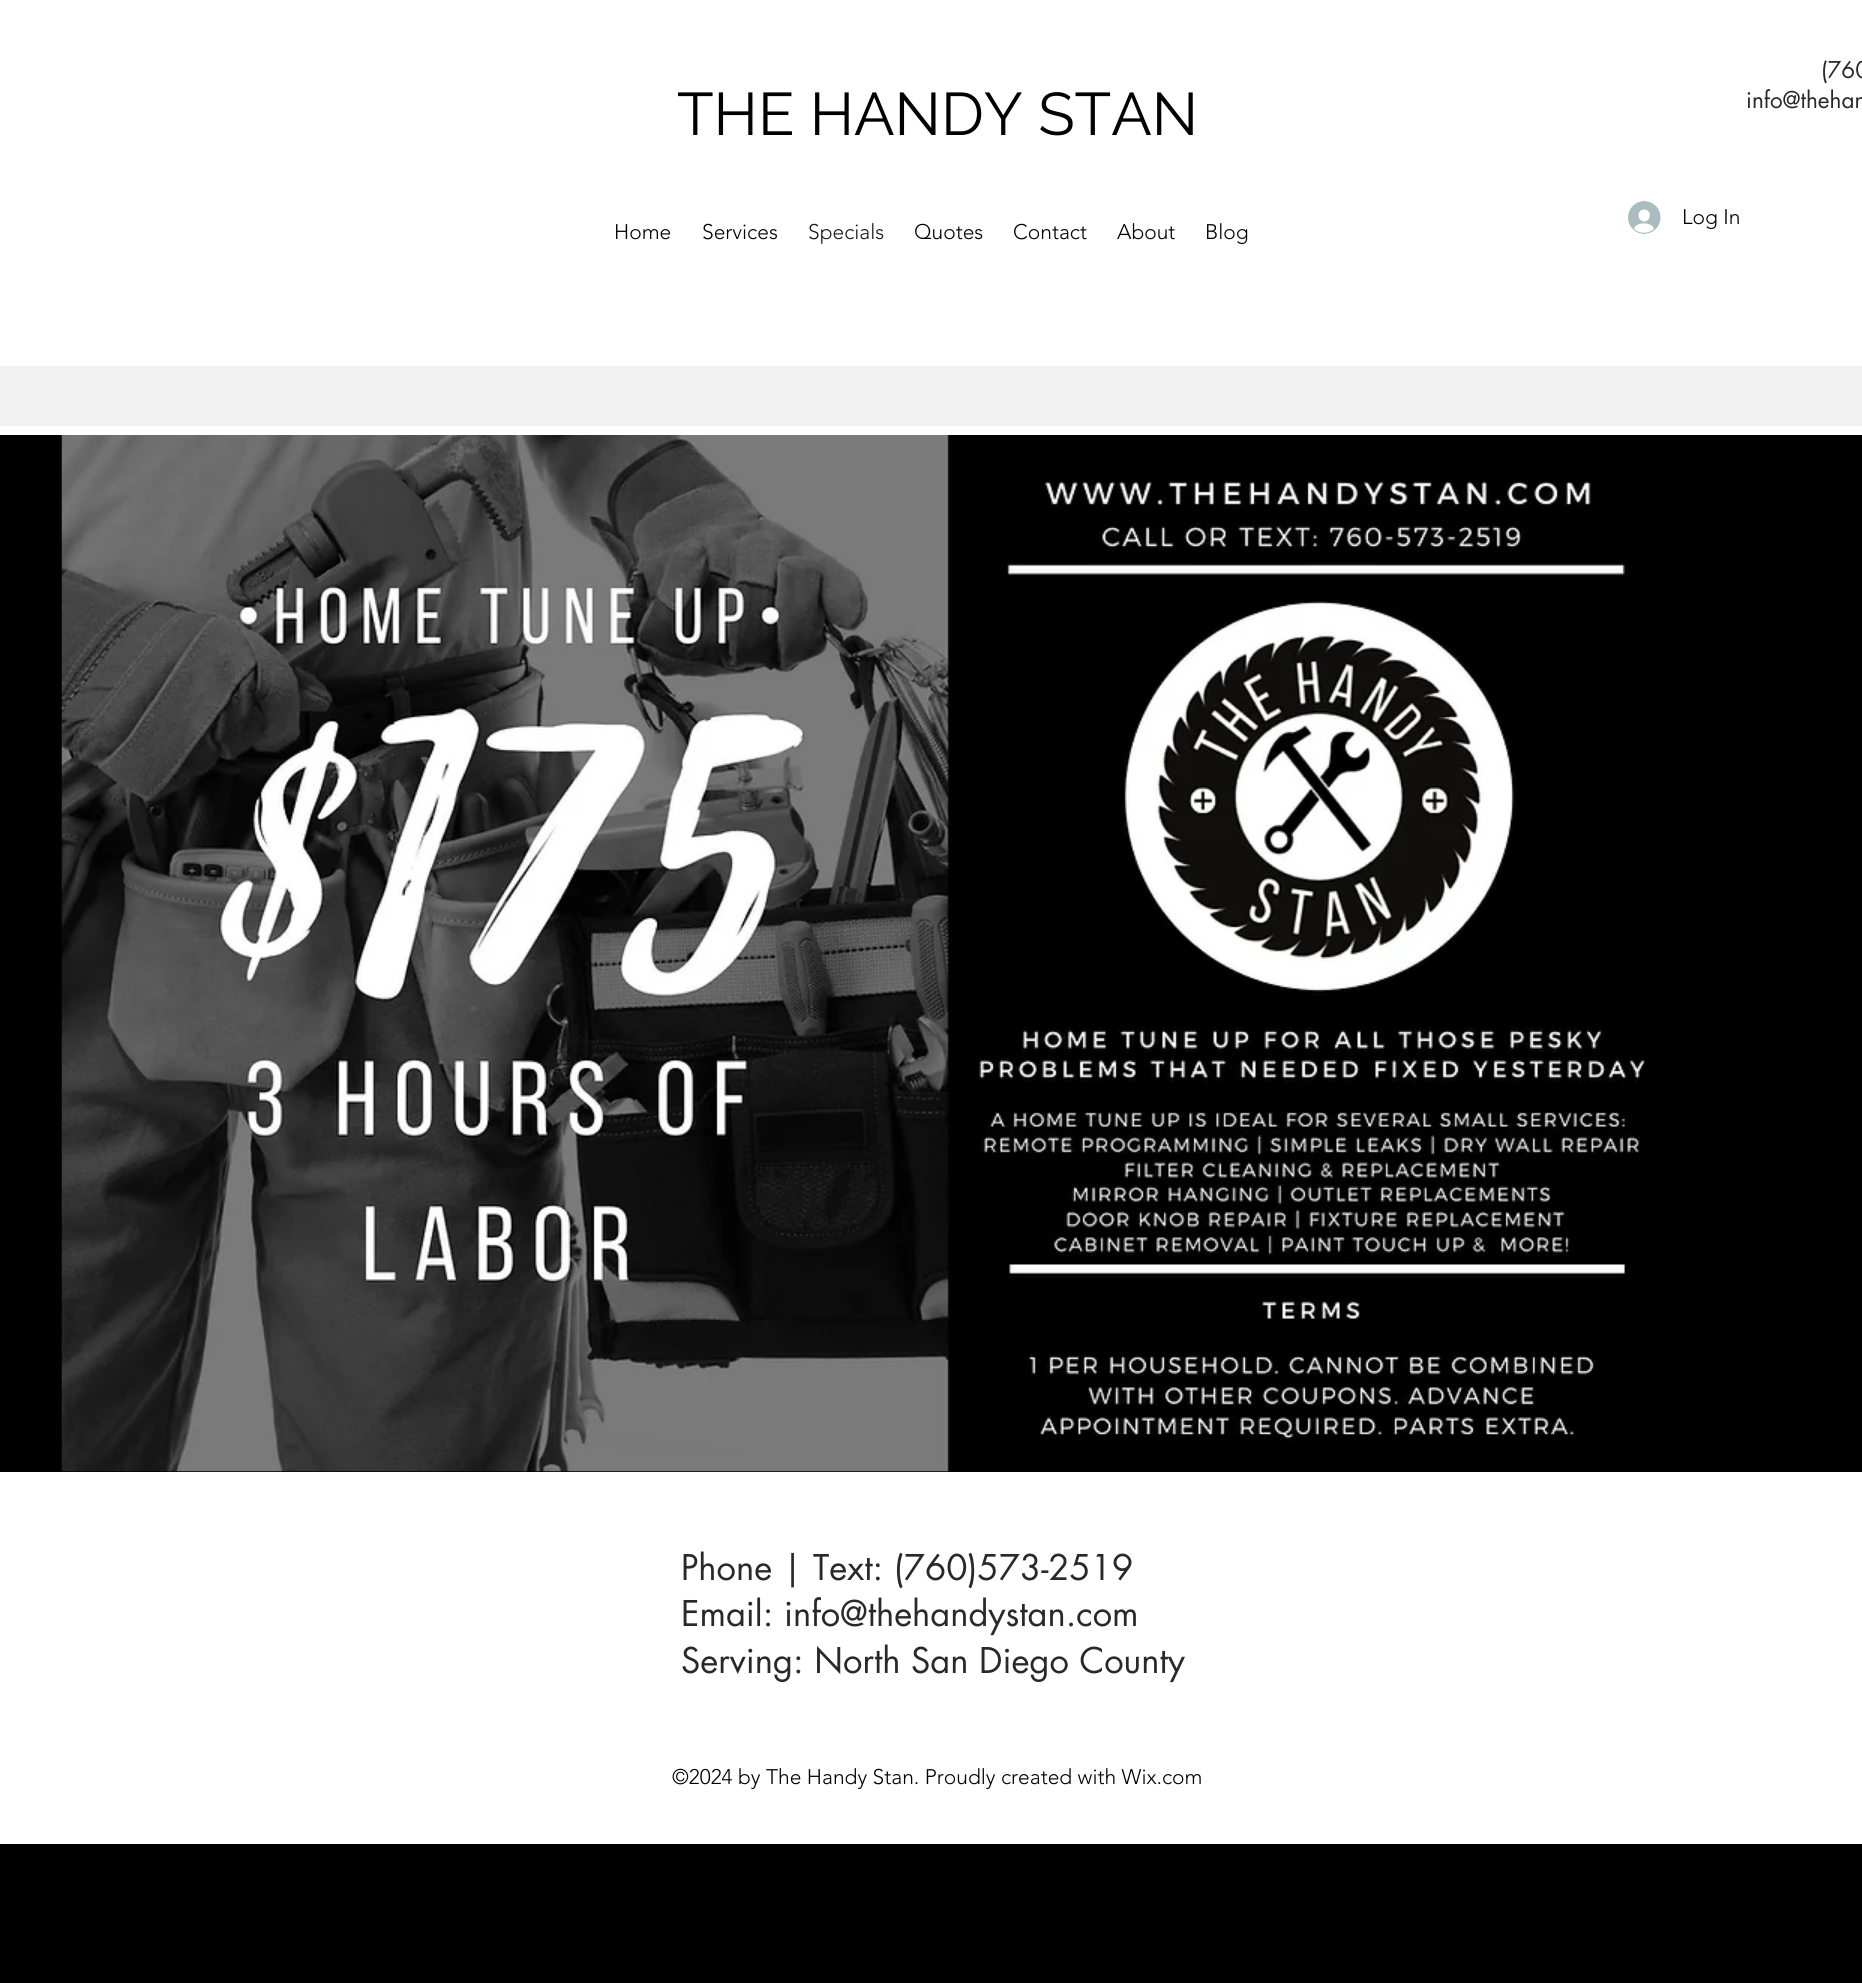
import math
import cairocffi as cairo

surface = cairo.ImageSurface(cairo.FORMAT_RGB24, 1862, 1983)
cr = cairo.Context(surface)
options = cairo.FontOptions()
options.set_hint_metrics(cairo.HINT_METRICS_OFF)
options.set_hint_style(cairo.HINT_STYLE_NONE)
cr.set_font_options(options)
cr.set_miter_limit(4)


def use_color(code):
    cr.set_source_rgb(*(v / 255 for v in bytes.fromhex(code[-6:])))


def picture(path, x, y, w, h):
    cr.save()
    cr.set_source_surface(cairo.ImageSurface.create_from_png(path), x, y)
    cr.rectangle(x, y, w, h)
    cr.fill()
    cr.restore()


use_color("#000000")
cr.paint()
use_color("#ffffff")
cr.rectangle(0, 0, 1862, 435)
cr.fill()
cr.select_font_face("futura")
cr.set_font_size(22.5)
use_color("#292929")
cr.move_to(1821, 78)
cr.show_text("(760")
cr.move_to(1746, 108)
cr.show_text("info@thehan")
cr.select_font_face("Raleway")
cr.set_font_size(60)
use_color("#000000")
cr.move_to(677, 135)
cr.show_text("THE HANDY STAN")
picture("img1.png", 1628, 201, 33, 33)
cr.select_font_face("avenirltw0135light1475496 Light")
cr.set_font_size(21)
cr.move_to(1682, 224)
cr.show_text("Log In")
cr.move_to(614, 239)
cr.show_text("Home")
cr.move_to(702, 239)
cr.show_text("Services")
use_color("#191919")
cr.move_to(808, 239)
cr.show_text("Specials")
use_color("#000000")
cr.move_to(914, 239)
cr.show_text("Quotes")
cr.move_to(1013, 239)
cr.show_text("Contact")
cr.move_to(1117, 239)
cr.show_text("About")
cr.move_to(1205, 239)
cr.show_text("Blog")
use_color("#f1f1f1")
cr.rectangle(0, 366, 1862, 60)
cr.fill()
picture("img2.png", 61, 435, 1584, 1037)
use_color("#ffffff")
cr.rectangle(0, 1472, 1862, 372)
cr.fill()
cr.select_font_face("futura")
cr.set_font_size(34.5)
use_color("#292929")
cr.move_to(681, 1580)
cr.show_text("Phone | Text: (760)573-2519")
cr.move_to(681, 1626)
cr.show_text("Email: info@thehandystan.com")
cr.move_to(681, 1673)
cr.show_text("Serving: North San Diego County")
cr.select_font_face("avenirltw0135light1475496 Light")
cr.set_font_size(21)
use_color("#000000")
cr.move_to(672, 1784)
cr.show_text("©2024 by The Handy Stan. Proudly created with Wix.com")
surface.write_to_png("result.png")
